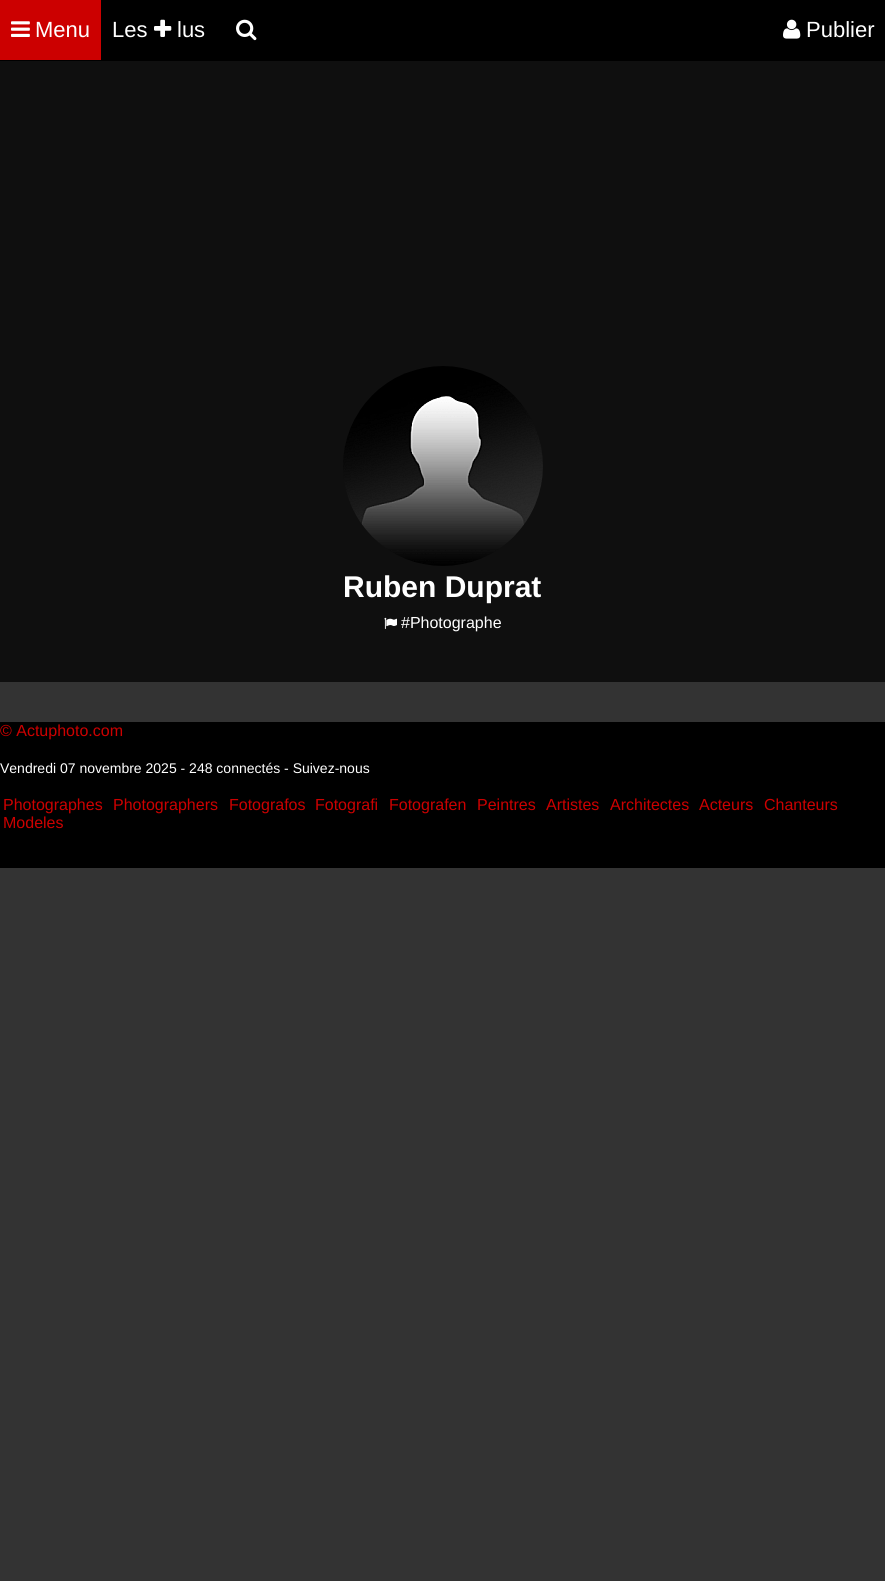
import math
import cairocffi as cairo

surface = cairo.ImageSurface(cairo.FORMAT_RGB24, 885, 1581)
cr = cairo.Context(surface)
options = cairo.FontOptions()
options.set_hint_metrics(cairo.HINT_METRICS_OFF)
options.set_hint_style(cairo.HINT_STYLE_NONE)
cr.set_font_options(options)
cr.set_miter_limit(4)


def use_color(code):
    cr.set_source_rgb(*(v / 255 for v in bytes.fromhex(code[-6:])))


def picture(path, x, y, w, h):
    cr.save()
    cr.set_source_surface(cairo.ImageSurface.create_from_png(path), x, y)
    cr.rectangle(x, y, w, h)
    cr.fill()
    cr.restore()


use_color("#333333")
cr.paint()
use_color("#000000")
cr.rectangle(0, 0, 885, 61)
cr.fill()
use_color("#cc0000")
cr.rectangle(0, 0, 101, 60)
cr.fill()
picture("img1.png", 11, 21, 19, 16)
cr.select_font_face("Liberation Sans")
cr.set_font_size(22)
use_color("#ffffff")
cr.move_to(35, 37)
cr.show_text("Menu")
cr.move_to(112, 37)
cr.show_text("Les")
picture("img2.png", 154, 19, 18, 18)
cr.move_to(177, 37)
cr.show_text("lus")
picture("img3.png", 236, 19, 21, 22)
picture("img4.png", 783, 19, 18, 20)
cr.move_to(806, 37)
cr.show_text("Publier")
use_color("#0f0f0f")
cr.rectangle(0, 61, 885, 621)
cr.fill()
picture("img5.png", 343, 366, 200, 200)
cr.select_font_face("Liberation Sans", cairo.FONT_SLANT_NORMAL, cairo.FONT_WEIGHT_BOLD)
cr.set_font_size(30)
use_color("#ffffff")
cr.move_to(343, 597)
cr.show_text("Ruben Duprat")
picture("img6.png", 384, 617, 13, 12)
cr.select_font_face("Liberation Sans")
cr.set_font_size(16)
cr.move_to(401, 628)
cr.show_text("#Photographe")
use_color("#000000")
cr.rectangle(0, 722, 885, 146)
cr.fill()
use_color("#cc0000")
cr.move_to(0, 736)
cr.show_text("© Actuphoto.com")
cr.set_font_size(14)
use_color("#ffffff")
cr.move_to(0, 773)
cr.show_text("Vendredi 07 novembre 2025 - 248 connectés - Suivez-nous")
cr.set_font_size(16)
use_color("#cc0000")
cr.move_to(3, 810)
cr.show_text("Photographes")
cr.move_to(113, 810)
cr.show_text("Photographers")
cr.move_to(229, 810)
cr.show_text("Fotografos")
cr.move_to(315, 810)
cr.show_text("Fotografi")
cr.move_to(389, 810)
cr.show_text("Fotografen")
cr.move_to(477, 810)
cr.show_text("Peintres")
cr.move_to(546, 810)
cr.show_text("Artistes")
cr.move_to(610, 810)
cr.show_text("Architectes")
cr.move_to(699, 810)
cr.show_text("Acteurs")
cr.move_to(764, 810)
cr.show_text("Chanteurs")
cr.move_to(3, 828)
cr.show_text("Modeles")
surface.write_to_png("result.png")
